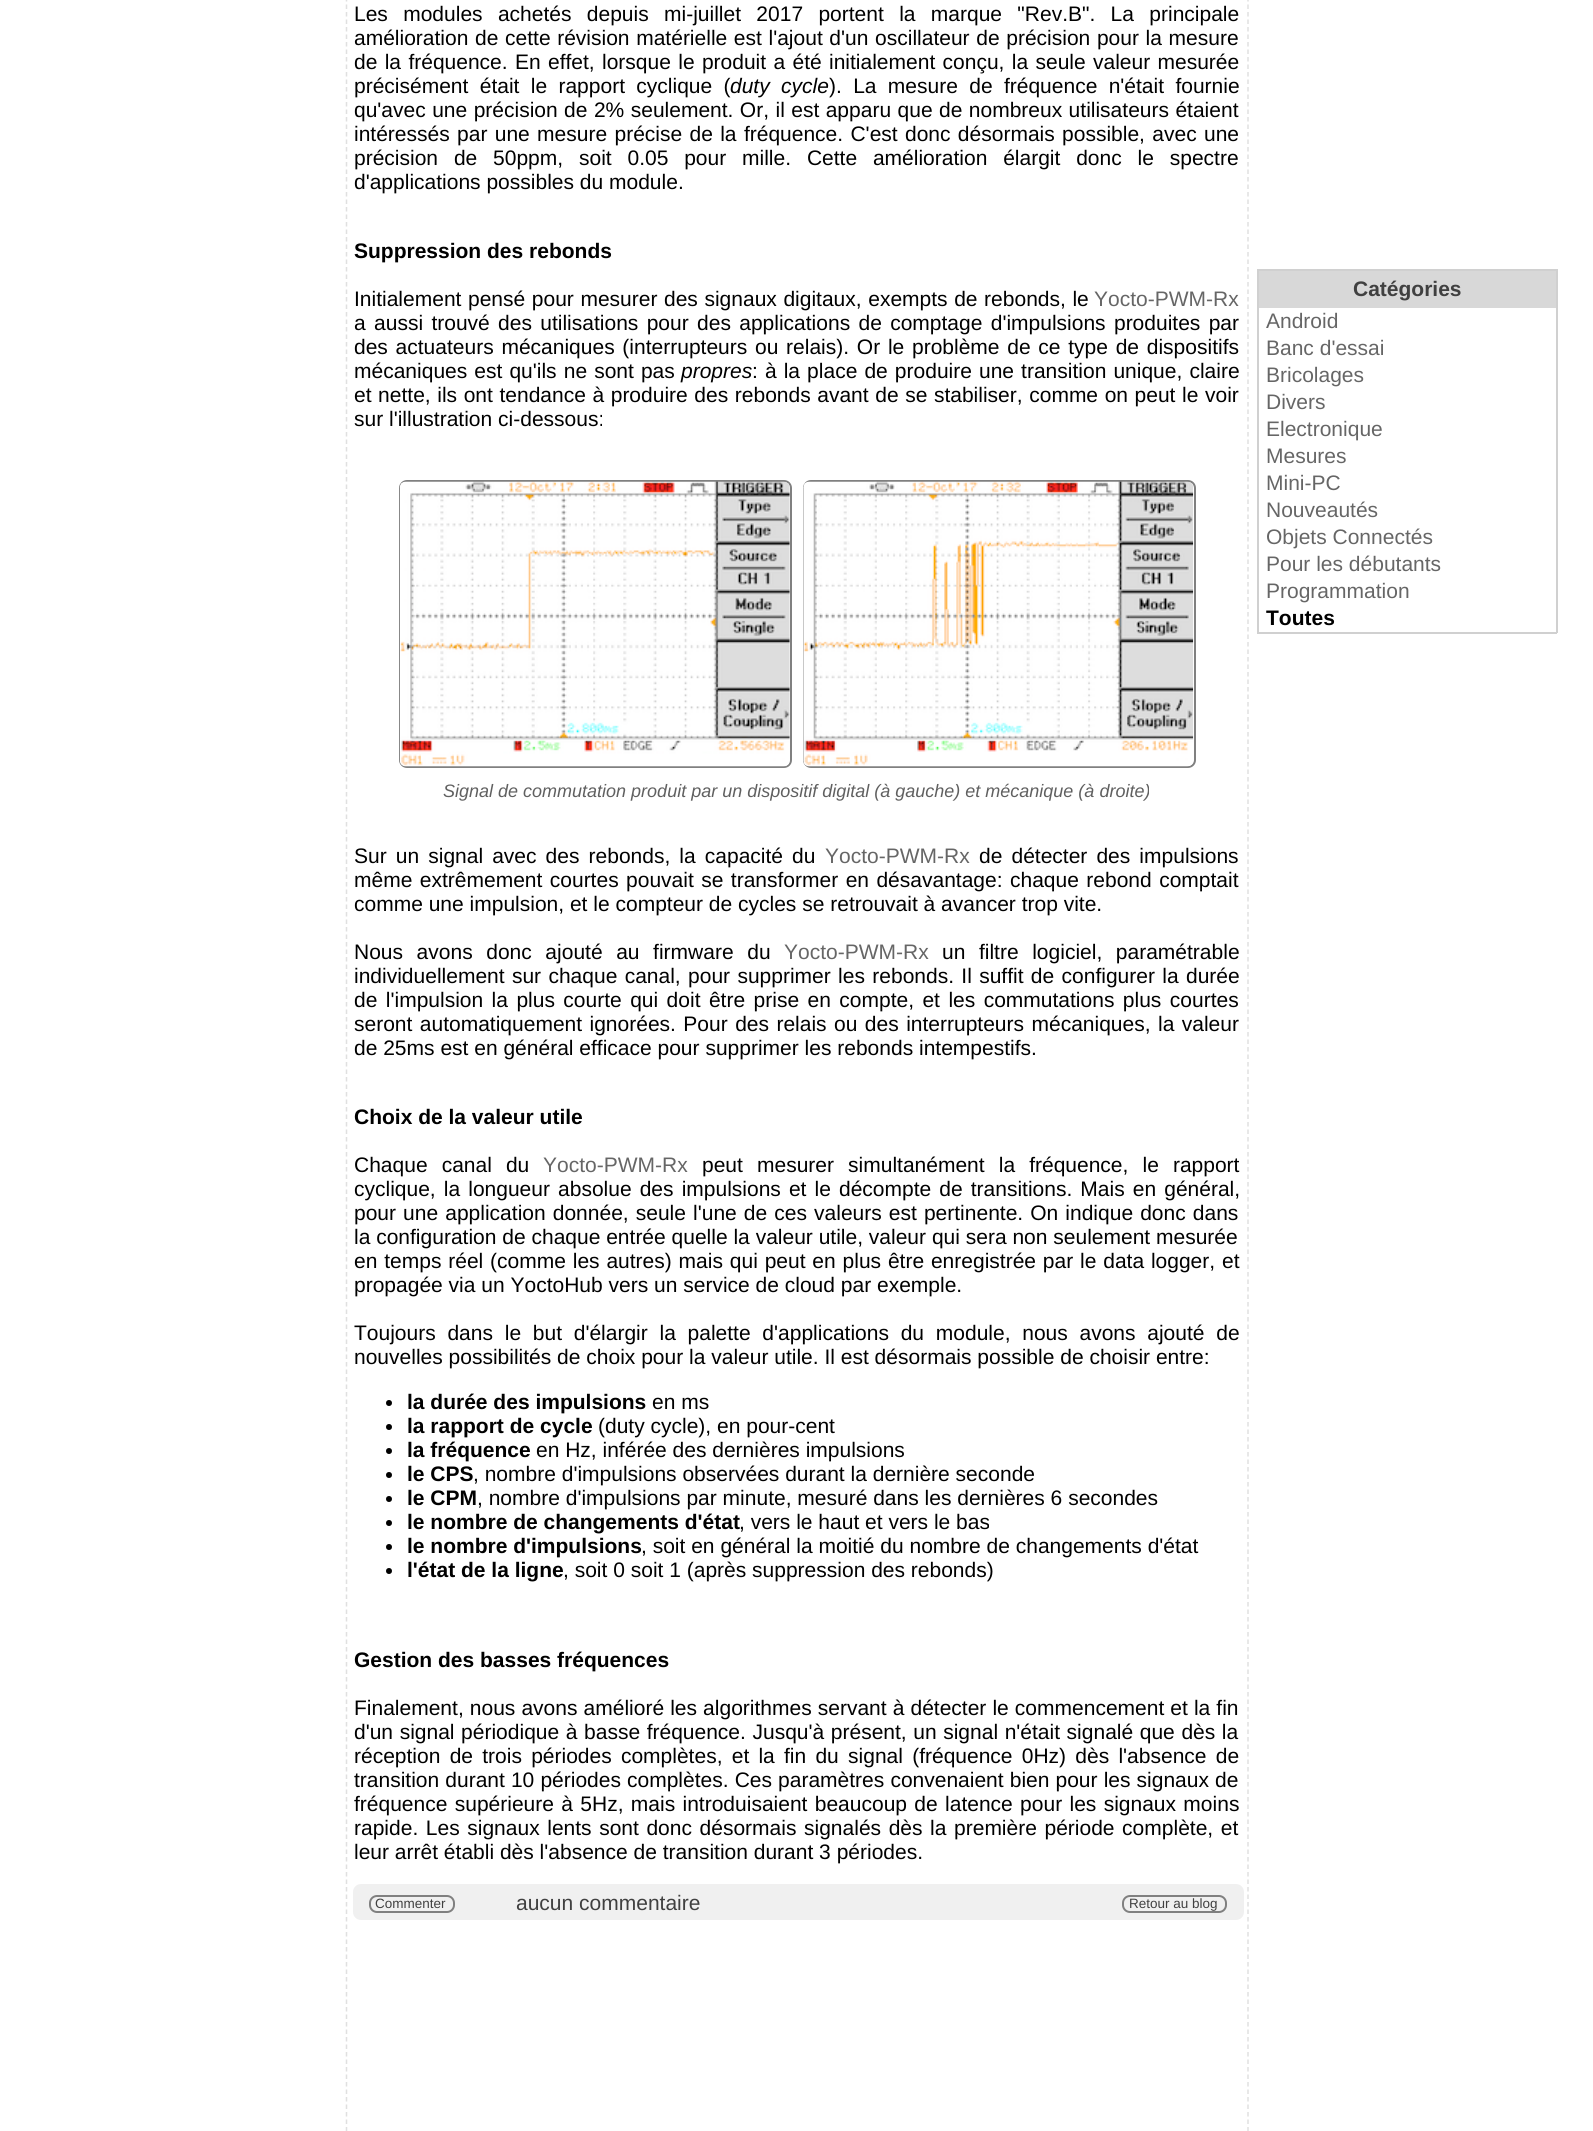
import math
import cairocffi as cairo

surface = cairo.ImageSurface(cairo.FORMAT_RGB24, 1593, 2131)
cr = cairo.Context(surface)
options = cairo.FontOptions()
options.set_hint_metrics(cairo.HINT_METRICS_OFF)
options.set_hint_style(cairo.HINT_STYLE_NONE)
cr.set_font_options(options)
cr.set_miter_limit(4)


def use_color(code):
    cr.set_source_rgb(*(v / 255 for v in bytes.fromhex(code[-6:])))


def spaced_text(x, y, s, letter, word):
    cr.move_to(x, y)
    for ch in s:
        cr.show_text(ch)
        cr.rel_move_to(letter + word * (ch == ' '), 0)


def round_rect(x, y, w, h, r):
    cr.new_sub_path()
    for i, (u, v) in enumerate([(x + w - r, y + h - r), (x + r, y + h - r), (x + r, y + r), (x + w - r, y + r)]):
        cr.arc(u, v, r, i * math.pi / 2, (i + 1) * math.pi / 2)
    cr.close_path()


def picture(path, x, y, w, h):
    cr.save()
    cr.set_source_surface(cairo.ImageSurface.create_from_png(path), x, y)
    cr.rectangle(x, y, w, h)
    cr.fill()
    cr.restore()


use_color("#ffffff")
cr.paint()
cr.new_path()
cr.move_to(1248, -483)
cr.line_to(1248, 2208)
use_color("#e0e0e0")
cr.set_line_width(1.5)
cr.set_dash([4.5, 3])
cr.stroke()
cr.new_path()
cr.move_to(346.5, -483)
cr.line_to(346.5, 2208)
cr.stroke()
cr.select_font_face("Liberation Sans")
cr.set_font_size(21)
use_color("#000000")
spaced_text(354, 21, "Les modules achetés depuis mi-juillet 2017 portent la marque \"Rev.B\". La principale", 0, 9.5)
spaced_text(354, 45, "amélioration de cette révision matérielle est l'ajout d'un oscillateur de précision pour la mesure", 0, 0.8)
spaced_text(354, 69, "de la fréquence. En effet, lorsque le produit a été initialement conçu, la seule valeur mesurée", 0, 1.5)
spaced_text(354, 93, "précisément était le rapport cyclique (", 0, 5.5)
cr.select_font_face("Liberation Sans", cairo.FONT_SLANT_ITALIC)
spaced_text(730, 93, "duty cycle", 0, 5.5)
cr.select_font_face("Liberation Sans")
spaced_text(829, 93, "). La mesure de fréquence n'était fournie", 0, 5.5)
spaced_text(354, 117, "qu'avec une précision de 2% seulement. Or, il est apparu que de nombreux utilisateurs étaient", 0, 0.6)
spaced_text(354, 141, "intéressés par une mesure précise de la fréquence. C'est donc désormais possible, avec une", 0, 1.5)
spaced_text(354, 165, "précision de 50ppm, soit 0.05 pour mille. Cette amélioration élargit donc le spectre", 0, 10)
cr.move_to(354, 189)
cr.show_text("d'applications possibles du module.")
cr.select_font_face("Liberation Sans", cairo.FONT_SLANT_NORMAL, cairo.FONT_WEIGHT_BOLD)
cr.move_to(354, 258)
cr.show_text("Suppression des rebonds")
cr.select_font_face("Liberation Sans")
spaced_text(354, 306, "Initialement pensé pour mesurer des signaux digitaux, exempts de rebonds, le", 0, 0.75)
use_color("#666666")
cr.move_to(1094, 306)
cr.show_text("Yocto-PWM-Rx")
use_color("#000000")
spaced_text(354, 330, "a aussi trouvé des utilisations pour des applications de comptage d'impulsions produites par", 0, 2.5)
spaced_text(354, 354, "des actuateurs mécaniques (interrupteurs ou relais). Or le problème de ce type de dispositifs", 0, 1.9)
spaced_text(354, 378, "mécaniques est qu'ils ne sont pas", 0, 1.25)
cr.select_font_face("Liberation Sans", cairo.FONT_SLANT_ITALIC)
cr.move_to(681, 378)
cr.show_text("propres")
cr.select_font_face("Liberation Sans")
spaced_text(752, 378, ": à la place de produire une transition unique, claire", 0, 1.25)
spaced_text(354, 402, "et nette, ils ont tendance à produire des rebonds avant de se stabiliser, comme on peut le voir", 0, 0.75)
cr.move_to(354, 426)
cr.show_text("sur l'illustration ci-dessous:")
round_rect(400, 481, 391, 286, 7)
use_color("#808080")
cr.set_line_width(2)
cr.set_dash([])
cr.stroke()
round_rect(804, 481, 391, 286, 7)
cr.stroke()
picture("img1.png", 399, 481, 391, 286)
picture("img2.png", 803, 481, 391, 286)
cr.select_font_face("Liberation Sans", cairo.FONT_SLANT_ITALIC)
cr.set_font_size(18)
use_color("#606060")
cr.move_to(443, 797)
cr.show_text("Signal de commutation produit par un dispositif digital (à gauche) et mécanique (à droite)")
cr.select_font_face("Liberation Sans")
cr.set_font_size(21)
use_color("#000000")
spaced_text(354, 863, "Sur un signal avec des rebonds, la capacité du", 0, 3.25)
use_color("#666666")
cr.move_to(825, 863)
cr.show_text("Yocto-PWM-Rx")
use_color("#000000")
spaced_text(979, 863, "de détecter des impulsions", 0, 3.25)
spaced_text(354, 887, "même extrêmement courtes pouvait se transformer en désavantage: chaque rebond comptait", 0, 1.6)
cr.move_to(354, 911)
cr.show_text("comme une impulsion, et le compteur de cycles se retrouvait à avancer trop vite.")
spaced_text(354, 959, "Nous avons donc ajouté au firmware du", 0, 7.75)
use_color("#666666")
cr.move_to(784, 959)
cr.show_text("Yocto-PWM-Rx")
use_color("#000000")
spaced_text(942, 959, "un filtre logiciel, paramétrable", 0, 7.75)
spaced_text(354, 983, "individuellement sur chaque canal, pour supprimer les rebonds. Il suffit de configurer la durée", 0, 1.5)
spaced_text(354, 1007, "de l'impulsion la plus courte qui doit être prise en compte, et les commutations plus courtes", 0, 2.6)
spaced_text(354, 1031, "seront automatiquement ignorées. Pour des relais ou des interrupteurs mécaniques, la valeur", 0, 1.6)
cr.move_to(354, 1055)
cr.show_text("de 25ms est en général efficace pour supprimer les rebonds intempestifs.")
cr.select_font_face("Liberation Sans", cairo.FONT_SLANT_NORMAL, cairo.FONT_WEIGHT_BOLD)
cr.move_to(354, 1124)
cr.show_text("Choix de la valeur utile")
cr.select_font_face("Liberation Sans")
spaced_text(354, 1172, "Chaque canal du", 0, 8.25)
use_color("#666666")
cr.move_to(543, 1172)
cr.show_text("Yocto-PWM-Rx")
use_color("#000000")
spaced_text(702, 1172, "peut mesurer simultanément la fréquence, le rapport", 0, 8.25)
spaced_text(354, 1196, "cyclique, la longueur absolue des impulsions et le décompte de transitions. Mais en général,", 0, 2.25)
spaced_text(354, 1220, "pour une application donnée, seule l'une de ces valeurs est pertinente. On indique donc dans", 0, 1.25)
cr.move_to(354, 1244)
cr.show_text("la configuration de chaque entrée quelle la valeur utile, valeur qui sera non seulement mesurée")
spaced_text(354, 1268, "en temps réel (comme les autres) mais qui peut en plus être enregistrée par le data logger, et", 0, 1)
cr.move_to(354, 1292)
cr.show_text("propagée via un YoctoHub vers un service de cloud par exemple.")
spaced_text(354, 1340, "Toujours dans le but d'élargir la palette d'applications du module, nous avons ajouté de", 0, 5.9)
cr.move_to(354, 1364)
cr.show_text("nouvelles possibilités de choix pour la valeur utile. Il est désormais possible de choisir entre:")
cr.new_path()
cr.arc(389, 1403, 3, 0, 2 * math.pi)
cr.fill()
cr.select_font_face("Liberation Sans", cairo.FONT_SLANT_NORMAL, cairo.FONT_WEIGHT_BOLD)
cr.move_to(407, 1409)
cr.show_text("la durée des impulsions")
cr.select_font_face("Liberation Sans")
cr.move_to(652, 1409)
cr.show_text("en ms")
cr.new_path()
cr.arc(389, 1427, 3, 0, 2 * math.pi)
cr.fill()
cr.select_font_face("Liberation Sans", cairo.FONT_SLANT_NORMAL, cairo.FONT_WEIGHT_BOLD)
cr.move_to(407, 1433)
cr.show_text("la rapport de cycle")
cr.select_font_face("Liberation Sans")
cr.move_to(598, 1433)
cr.show_text("(duty cycle), en pour-cent")
cr.new_path()
cr.arc(389, 1451, 3, 0, 2 * math.pi)
cr.fill()
cr.select_font_face("Liberation Sans", cairo.FONT_SLANT_NORMAL, cairo.FONT_WEIGHT_BOLD)
cr.move_to(407, 1457)
cr.show_text("la fréquence")
cr.select_font_face("Liberation Sans")
cr.move_to(536, 1457)
cr.show_text("en Hz, inférée des dernières impulsions")
cr.new_path()
cr.arc(389, 1475, 3, 0, 2 * math.pi)
cr.fill()
cr.select_font_face("Liberation Sans", cairo.FONT_SLANT_NORMAL, cairo.FONT_WEIGHT_BOLD)
cr.move_to(407, 1481)
cr.show_text("le CPS")
cr.select_font_face("Liberation Sans")
cr.move_to(473, 1481)
cr.show_text(", nombre d'impulsions observées durant la dernière seconde")
cr.new_path()
cr.arc(389, 1499, 3, 0, 2 * math.pi)
cr.fill()
cr.select_font_face("Liberation Sans", cairo.FONT_SLANT_NORMAL, cairo.FONT_WEIGHT_BOLD)
cr.move_to(407, 1505)
cr.show_text("le CPM")
cr.select_font_face("Liberation Sans")
cr.move_to(477, 1505)
cr.show_text(", nombre d'impulsions par minute, mesuré dans les dernières 6 secondes")
cr.new_path()
cr.arc(389, 1523, 3, 0, 2 * math.pi)
cr.fill()
cr.select_font_face("Liberation Sans", cairo.FONT_SLANT_NORMAL, cairo.FONT_WEIGHT_BOLD)
cr.move_to(407, 1529)
cr.show_text("le nombre de changements d'état")
cr.select_font_face("Liberation Sans")
cr.move_to(739, 1529)
cr.show_text(", vers le haut et vers le bas")
cr.new_path()
cr.arc(389, 1547, 3, 0, 2 * math.pi)
cr.fill()
cr.select_font_face("Liberation Sans", cairo.FONT_SLANT_NORMAL, cairo.FONT_WEIGHT_BOLD)
cr.move_to(407, 1553)
cr.show_text("le nombre d'impulsions")
cr.select_font_face("Liberation Sans")
cr.move_to(641, 1553)
cr.show_text(", soit en général la moitié du nombre de changements d'état")
cr.new_path()
cr.arc(389, 1571, 3, 0, 2 * math.pi)
cr.fill()
cr.select_font_face("Liberation Sans", cairo.FONT_SLANT_NORMAL, cairo.FONT_WEIGHT_BOLD)
cr.move_to(407, 1577)
cr.show_text("l'état de la ligne")
cr.select_font_face("Liberation Sans")
cr.move_to(563, 1577)
cr.show_text(", soit 0 soit 1 (après suppression des rebonds)")
cr.select_font_face("Liberation Sans", cairo.FONT_SLANT_NORMAL, cairo.FONT_WEIGHT_BOLD)
cr.move_to(354, 1667)
cr.show_text("Gestion des basses fréquences")
cr.select_font_face("Liberation Sans")
spaced_text(354, 1715, "Finalement, nous avons amélioré les algorithmes servant à détecter le commencement et la fin", 0, 0.25)
spaced_text(354, 1739, "d'un signal périodique à basse fréquence. Jusqu'à présent, un signal n'était signalé que dès la", 0, 0.75)
spaced_text(354, 1763, "réception de trois périodes complètes, et la fin du signal (fréquence 0Hz) dès l'absence de", 0, 3.4)
spaced_text(354, 1787, "transition durant 10 périodes complètes. Ces paramètres convenaient bien pour les signaux de", 0, 0.25)
spaced_text(354, 1811, "fréquence supérieure à 5Hz, mais introduisaient beaucoup de latence pour les signaux moins", 0, 1.5)
spaced_text(354, 1835, "rapide. Les signaux lents sont donc désormais signalés dès la première période complète, et", 0, 1.75)
cr.move_to(354, 1859)
cr.show_text("leur arrêt établi dès l'absence de transition durant 3 périodes.")
use_color("#f0f0f0")
round_rect(353, 1884, 891, 36, 8)
cr.fill()
round_rect(370, 1896, 84, 16, 7)
use_color("#808080")
cr.stroke()
cr.set_font_size(13.5)
use_color("#404040")
cr.move_to(375, 1908)
cr.show_text("Commenter")
cr.set_font_size(21)
cr.move_to(516, 1910)
cr.show_text("aucun commentaire")
round_rect(1123, 1896, 103, 16, 7)
use_color("#808080")
cr.stroke()
cr.set_font_size(13.5)
use_color("#404040")
cr.move_to(1129, 1908)
cr.show_text("Retour au blog")
use_color("#d0d0d0")
cr.rectangle(1257, 269, 300, 2)
cr.fill()
cr.rectangle(1556, 269, 2, 364)
cr.fill()
cr.rectangle(1257, 632, 300, 2)
cr.fill()
cr.rectangle(1257, 269, 2, 364)
cr.fill()
use_color("#d8d8d8")
cr.rectangle(1259, 271, 297, 37)
cr.fill()
cr.select_font_face("Liberation Sans", cairo.FONT_SLANT_NORMAL, cairo.FONT_WEIGHT_BOLD)
cr.set_font_size(21)
use_color("#404040")
cr.move_to(1353, 296)
cr.show_text("Catégories")
cr.select_font_face("Liberation Sans")
use_color("#666666")
cr.move_to(1266, 328)
cr.show_text("Android")
cr.move_to(1266, 355)
cr.show_text("Banc d'essai")
cr.move_to(1266, 382)
cr.show_text("Bricolages")
cr.move_to(1266, 409)
cr.show_text("Divers")
cr.move_to(1266, 436)
cr.show_text("Electronique")
cr.move_to(1266, 463)
cr.show_text("Mesures")
cr.move_to(1266, 490)
cr.show_text("Mini-PC")
cr.move_to(1266, 517)
cr.show_text("Nouveautés")
cr.move_to(1266, 544)
cr.show_text("Objets Connectés")
cr.move_to(1266, 571)
cr.show_text("Pour les débutants")
cr.move_to(1266, 598)
cr.show_text("Programmation")
cr.select_font_face("Liberation Sans", cairo.FONT_SLANT_NORMAL, cairo.FONT_WEIGHT_BOLD)
use_color("#000000")
cr.move_to(1266, 625)
cr.show_text("Toutes")
surface.write_to_png("result.png")
